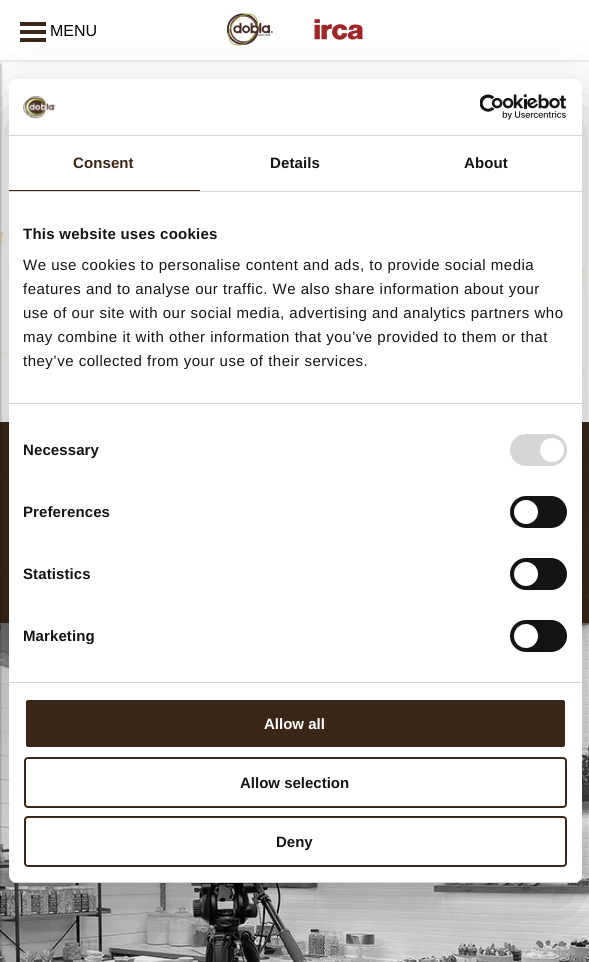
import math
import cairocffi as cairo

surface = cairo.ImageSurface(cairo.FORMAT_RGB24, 589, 962)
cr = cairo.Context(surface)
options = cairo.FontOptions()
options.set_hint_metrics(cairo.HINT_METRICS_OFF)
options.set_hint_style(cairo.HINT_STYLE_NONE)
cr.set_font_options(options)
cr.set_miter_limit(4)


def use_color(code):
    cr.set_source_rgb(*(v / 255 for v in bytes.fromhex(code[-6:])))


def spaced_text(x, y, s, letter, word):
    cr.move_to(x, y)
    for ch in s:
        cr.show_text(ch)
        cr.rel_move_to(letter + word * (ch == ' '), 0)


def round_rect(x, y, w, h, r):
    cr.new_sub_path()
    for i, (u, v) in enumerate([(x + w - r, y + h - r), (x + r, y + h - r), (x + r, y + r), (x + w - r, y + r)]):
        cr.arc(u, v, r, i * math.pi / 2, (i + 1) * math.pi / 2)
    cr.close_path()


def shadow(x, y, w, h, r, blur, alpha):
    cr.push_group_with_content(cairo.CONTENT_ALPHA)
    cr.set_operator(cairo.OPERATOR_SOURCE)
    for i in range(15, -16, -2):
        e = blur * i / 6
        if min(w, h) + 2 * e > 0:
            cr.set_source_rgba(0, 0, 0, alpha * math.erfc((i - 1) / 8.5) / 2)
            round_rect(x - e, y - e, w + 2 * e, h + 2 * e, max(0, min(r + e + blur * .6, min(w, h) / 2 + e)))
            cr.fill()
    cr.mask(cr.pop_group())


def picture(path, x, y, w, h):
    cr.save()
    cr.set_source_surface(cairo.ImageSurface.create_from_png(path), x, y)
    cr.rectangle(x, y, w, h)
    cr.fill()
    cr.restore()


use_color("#ffffff")
cr.paint()
cr.save()
cr.rectangle(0, 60, 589, 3)
cr.clip()
use_color("#000000")
shadow(-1, -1, 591, 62, 0, 1.5, 0.15)
cr.restore()
use_color("#3a2717")
cr.rectangle(20, 30, 26, 4)
cr.fill()
cr.rectangle(20, 22, 26, 4)
cr.fill()
cr.rectangle(20, 38, 26, 4)
cr.fill()
cr.select_font_face("Liberation Sans")
cr.set_font_size(16)
use_color("#000000")
cr.move_to(50, 36)
cr.show_text("MENU")
picture("img1.png", 227, 13, 136, 33)
picture("img2.png", 0, 109, 587, 313)
use_color("#3a2717")
cr.rectangle(0, 422, 589, 201)
cr.fill()
picture("img3.png", 0, 422, 589, 201)
picture("img4.png", 0, 623, 589, 339)
use_color("#000000")
shadow(-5, 64, 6, 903, 0, 1.5, 0.3)
shadow(9, 111, 573, 804, 8, 34, 0.3)
use_color("#ffffff")
round_rect(9, 79, 573, 804, 8)
cr.fill()
use_color("#d6d6d6")
cr.rectangle(9, 135, 573, 1)
cr.fill()
picture("img5.png", 23, 96, 33, 23)
picture("img6.png", 480, 94, 87, 26)
cr.rectangle(9, 191, 573, 1)
cr.fill()
use_color("#3a2717")
cr.rectangle(9, 190, 191, 1)
cr.fill()
cr.select_font_face("Liberation Sans", cairo.FONT_SLANT_NORMAL, cairo.FONT_WEIGHT_BOLD)
cr.set_font_size(15)
spaced_text(73, 168, "Consent", 0.1, 0)
use_color("#141414")
spaced_text(270, 168, "Details", 0.1, 0)
spaced_text(464, 168, "About", 0.1, 0)
use_color("#d6d6d6")
cr.rectangle(9, 403, 573, 1)
cr.fill()
use_color("#141414")
spaced_text(23, 239, "This website uses cookies", 0.25, 0)
cr.select_font_face("Liberation Sans")
spaced_text(23, 270, "We use cookies to personalise content and ads, to provide social media", 0.5, 0)
spaced_text(23, 294, "features and to analyse our traffic. We also share information about your", 0.5, 0)
spaced_text(23, 318, "use of our site with our social media, advertising and analytics partners who", 0.5, 0)
spaced_text(23, 342, "may combine it with other information that you’ve provided to them or that", 0.5, 0)
spaced_text(23, 366, "they’ve collected from your use of their services.", 0.5, 0)
use_color("#d6d6d6")
cr.rectangle(9, 682, 573, 1)
cr.fill()
cr.select_font_face("Liberation Sans", cairo.FONT_SLANT_NORMAL, cairo.FONT_WEIGHT_BOLD)
use_color("#141414")
spaced_text(23, 455, "Necessary", 0.1, 0)
use_color("#d6d6d6")
round_rect(510, 434, 57, 32, 16)
cr.fill()
use_color("#ffffff")
cr.arc(552, 450, 12, 0, 2 * math.pi)
cr.fill()
use_color("#141414")
spaced_text(23, 517, "Preferences", 0.1, 0)
round_rect(510, 496, 57, 32, 16)
cr.fill()
use_color("#ffffff")
cr.arc(526, 512, 12, 0, 2 * math.pi)
cr.fill()
use_color("#141414")
spaced_text(23, 579, "Statistics", 0.1, 0)
round_rect(510, 558, 57, 32, 16)
cr.fill()
use_color("#ffffff")
cr.arc(526, 574, 12, 0, 2 * math.pi)
cr.fill()
use_color("#141414")
spaced_text(23, 641, "Marketing", 0.1, 0)
round_rect(510, 620, 57, 32, 16)
cr.fill()
use_color("#ffffff")
cr.arc(526, 636, 12, 0, 2 * math.pi)
cr.fill()
cr.save()
round_rect(9, 79, 573, 804, 8)
cr.clip()
use_color("#d6d6d6")
cr.rectangle(9, 882, 573, 1)
cr.fill()
cr.restore()
use_color("#3a2717")
round_rect(25, 699, 541, 49, 3)
cr.fill_preserve()
use_color("#ffffff")
cr.stroke()
cr.move_to(264, 729)
cr.show_text("Allow all")
round_rect(25, 758, 541, 49, 3)
use_color("#3a2717")
cr.stroke()
use_color("#141414")
cr.move_to(240, 788)
cr.show_text("Allow selection")
round_rect(25, 817, 541, 49, 3)
use_color("#3a2717")
cr.stroke()
use_color("#141414")
cr.move_to(276, 847)
cr.show_text("Deny")
surface.write_to_png("result.png")
